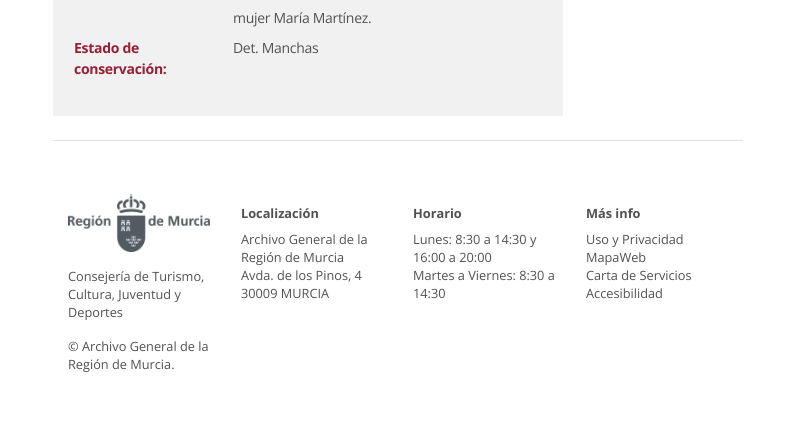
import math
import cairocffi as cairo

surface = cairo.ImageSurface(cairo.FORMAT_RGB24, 796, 422)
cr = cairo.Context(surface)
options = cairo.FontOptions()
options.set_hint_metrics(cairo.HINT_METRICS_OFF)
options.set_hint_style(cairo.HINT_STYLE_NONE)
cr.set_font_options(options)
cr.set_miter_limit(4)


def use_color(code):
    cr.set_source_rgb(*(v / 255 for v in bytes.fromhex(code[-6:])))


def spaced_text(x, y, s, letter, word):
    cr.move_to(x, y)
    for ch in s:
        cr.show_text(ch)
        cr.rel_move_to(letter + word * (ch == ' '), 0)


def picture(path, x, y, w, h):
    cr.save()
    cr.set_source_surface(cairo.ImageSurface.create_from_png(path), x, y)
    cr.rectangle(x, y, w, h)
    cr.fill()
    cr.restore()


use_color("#ffffff")
cr.paint()
use_color("#f1f1f1")
cr.rectangle(53, 0, 510, 116)
cr.fill()
cr.select_font_face("Open Sans")
cr.set_font_size(14)
use_color("#515151")
spaced_text(233, 23, "mujer María Martínez.", -0.3, 0)
cr.select_font_face("Open Sans", cairo.FONT_SLANT_NORMAL, cairo.FONT_WEIGHT_BOLD)
use_color("#981f36")
spaced_text(74, 53, "Estado de", -0.3, 0)
spaced_text(74, 74, "conservación:", -0.3, 0)
cr.select_font_face("Open Sans")
use_color("#515151")
spaced_text(233, 53, "Det. Manchas", -0.3, 0)
use_color("#dee2e6")
cr.rectangle(53, 140, 690, 1)
cr.fill()
cr.select_font_face("Open Sans", cairo.FONT_SLANT_NORMAL, cairo.FONT_WEIGHT_BOLD)
cr.set_font_size(12.75)
use_color("#515151")
cr.move_to(241, 218)
cr.show_text("Localización")
cr.select_font_face("Open Sans")
cr.move_to(241, 244)
cr.show_text("Archivo General de la")
cr.move_to(241, 262)
cr.show_text("Región de Murcia")
cr.move_to(241, 280)
cr.show_text("Avda. de los Pinos, 4")
cr.move_to(241, 298)
cr.show_text("30009 MURCIA")
cr.select_font_face("Open Sans", cairo.FONT_SLANT_NORMAL, cairo.FONT_WEIGHT_BOLD)
cr.move_to(413, 218)
cr.show_text("Horario")
cr.select_font_face("Open Sans")
cr.move_to(413, 244)
cr.show_text("Lunes: 8:30 a 14:30 y")
cr.move_to(413, 262)
cr.show_text("16:00 a 20:00")
cr.move_to(413, 280)
cr.show_text("Martes a Viernes: 8:30 a")
cr.move_to(413, 298)
cr.show_text("14:30")
cr.select_font_face("Open Sans", cairo.FONT_SLANT_NORMAL, cairo.FONT_WEIGHT_BOLD)
cr.move_to(586, 218)
cr.show_text("Más info")
cr.select_font_face("Open Sans")
cr.move_to(586, 244)
cr.show_text("Uso y Privacidad")
cr.move_to(586, 262)
cr.show_text("MapaWeb")
cr.move_to(586, 280)
cr.show_text("Carta de Servicios")
cr.move_to(586, 298)
cr.show_text("Accesibilidad")
picture("img1.png", 68, 194, 142, 58)
cr.move_to(68, 281)
cr.show_text("Consejería de Turismo,")
cr.move_to(68, 299)
cr.show_text("Cultura, Juventud y")
cr.move_to(68, 317)
cr.show_text("Deportes")
cr.move_to(68, 351)
cr.show_text("© Archivo General de la")
cr.move_to(68, 369)
cr.show_text("Región de Murcia.")
surface.write_to_png("result.png")
